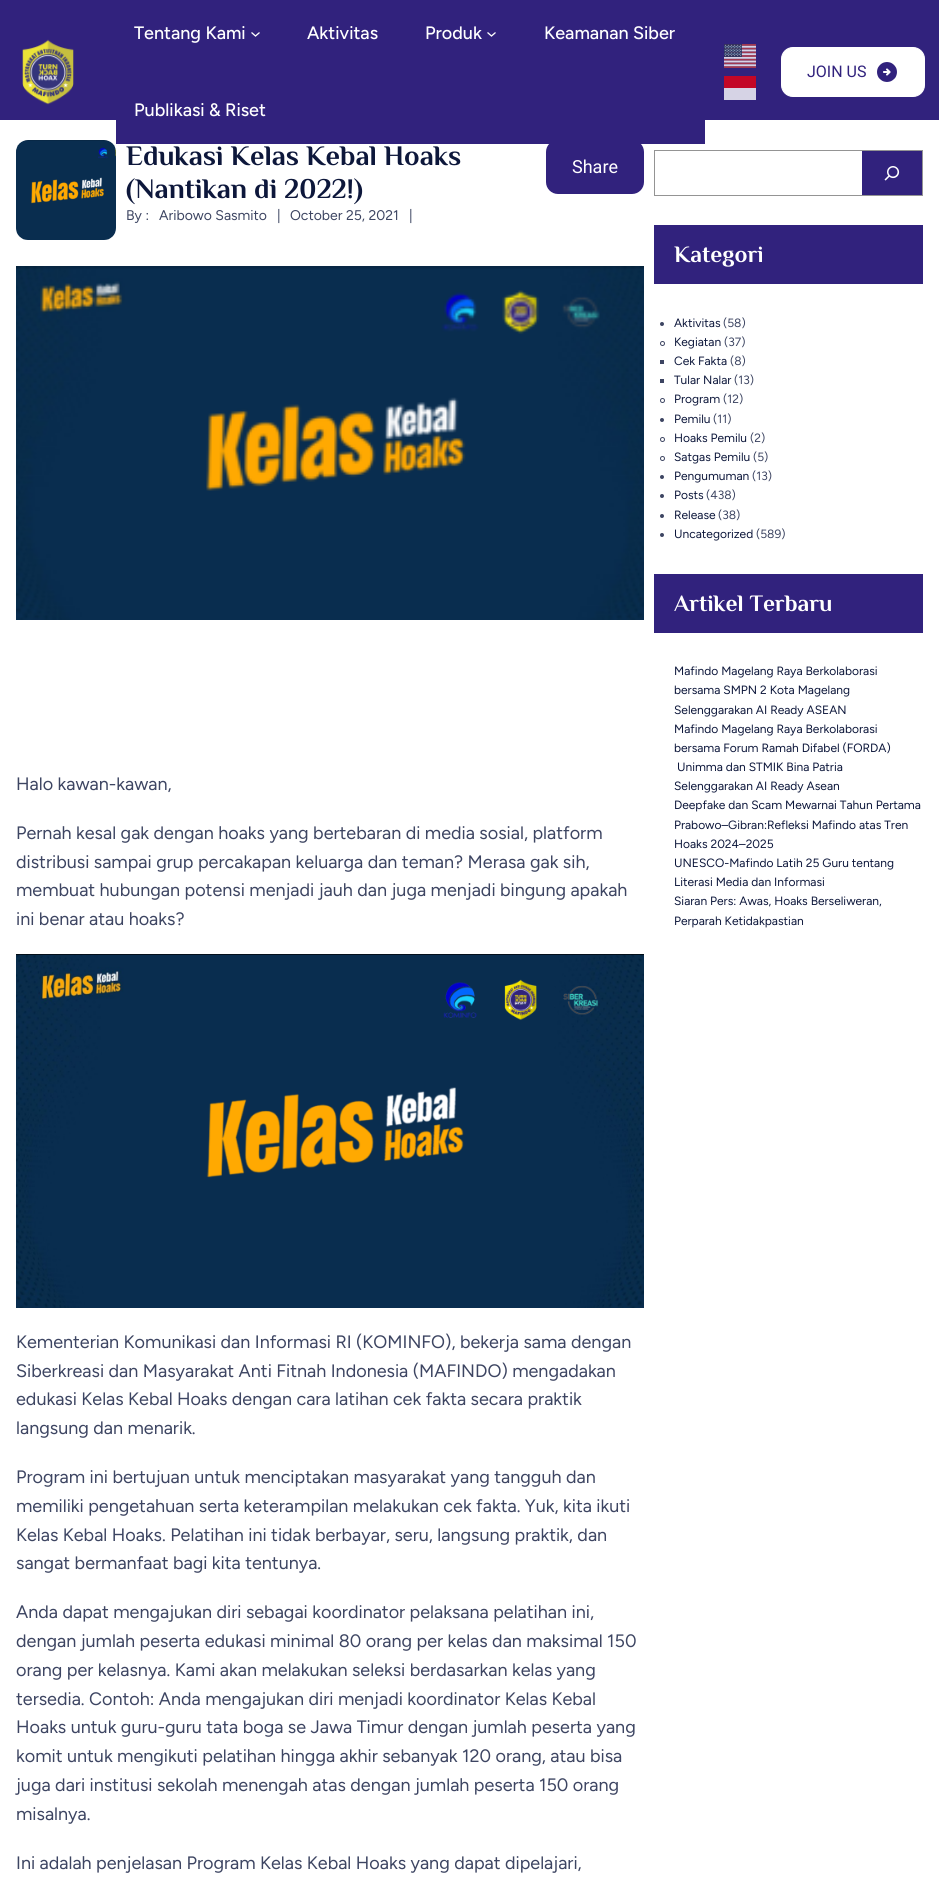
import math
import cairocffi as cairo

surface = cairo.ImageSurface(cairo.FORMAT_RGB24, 939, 1898)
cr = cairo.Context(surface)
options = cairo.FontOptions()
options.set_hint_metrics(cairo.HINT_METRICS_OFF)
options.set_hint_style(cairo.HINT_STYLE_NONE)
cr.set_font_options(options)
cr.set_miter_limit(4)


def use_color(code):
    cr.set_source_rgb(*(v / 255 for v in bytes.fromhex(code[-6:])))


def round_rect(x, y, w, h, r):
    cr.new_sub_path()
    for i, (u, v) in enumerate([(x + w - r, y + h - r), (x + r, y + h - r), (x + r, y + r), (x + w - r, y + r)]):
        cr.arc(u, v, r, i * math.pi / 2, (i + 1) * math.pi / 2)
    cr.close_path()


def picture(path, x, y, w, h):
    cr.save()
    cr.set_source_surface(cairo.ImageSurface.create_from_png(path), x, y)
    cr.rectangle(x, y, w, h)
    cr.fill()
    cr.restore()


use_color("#ffffff")
cr.paint()
use_color("#31227d")
cr.rectangle(0, 0, 939, 120)
cr.fill()
picture("img1.png", 22, 39, 52, 66)
round_rect(546, 140, 98, 54, 12)
cr.fill()
cr.rectangle(116, 120, 589, 24)
cr.fill()
cr.select_font_face("Figtree Medium")
cr.set_font_size(18)
use_color("#ffffff")
cr.move_to(134, 39)
cr.show_text("Tentang Kami")
cr.new_path()
cr.move_to(251.5, 32.5)
cr.line_to(255.5, 36)
cr.line_to(259.5, 32.5)
cr.set_line_width(1.3)
cr.stroke()
cr.move_to(307, 39)
cr.show_text("Aktivitas")
cr.move_to(425, 39)
cr.show_text("Produk")
cr.new_path()
cr.move_to(487.5, 32.5)
cr.line_to(491.5, 36)
cr.line_to(495.5, 32.5)
cr.stroke()
cr.move_to(544, 39)
cr.show_text("Keamanan Siber")
cr.move_to(134, 116)
cr.show_text("Publikasi & Riset")
picture("img2.png", 724, 44, 32, 24)
use_color("#c30727")
cr.rectangle(724, 76, 32, 12)
cr.fill()
use_color("#d6d3e5")
cr.rectangle(724, 88, 32, 12)
cr.fill()
use_color("#ffffff")
round_rect(781.5, 47.5, 143, 49, 11.5)
cr.fill_preserve()
cr.set_line_width(1)
cr.stroke()
cr.select_font_face("Roboto")
cr.set_font_size(16)
use_color("#31227d")
cr.move_to(807, 77)
cr.show_text("JOIN US")
picture("img3.png", 877, 62, 20, 20)
picture("img4.png", 16, 140, 100, 100)
cr.select_font_face("Philosopher", cairo.FONT_SLANT_NORMAL, cairo.FONT_WEIGHT_BOLD)
cr.set_font_size(28.25)
use_color("#0d173b")
cr.move_to(126, 165)
cr.show_text("Edukasi Kelas Kebal Hoaks")
cr.move_to(126, 198)
cr.show_text("(Nantikan di 2022!)")
cr.select_font_face("Figtree")
cr.set_font_size(14)
use_color("#3d4562")
cr.move_to(126, 220)
cr.show_text("By :")
cr.move_to(159, 220)
cr.show_text("Aribowo Sasmito")
cr.move_to(277, 220)
cr.show_text("|")
cr.move_to(290, 220)
cr.show_text("October 25, 2021")
cr.move_to(409, 220)
cr.show_text("|")
cr.select_font_face("Roboto")
cr.set_font_size(18)
use_color("#ffffff")
cr.move_to(572, 173)
cr.show_text("Share")
picture("img5.png", 16, 266, 628, 354)
cr.select_font_face("Figtree")
use_color("#3d4562")
cr.move_to(16, 790)
cr.show_text("Halo kawan-kawan,")
cr.move_to(16, 839)
cr.show_text("Pernah kesal gak dengan hoaks yang bertebaran di media sosial, platform")
cr.move_to(16, 868)
cr.show_text("distribusi sampai grup percakapan keluarga dan teman? Merasa gak sih,")
cr.move_to(16, 896)
cr.show_text("membuat hubungan potensi menjadi jauh dan juga menjadi bingung apakah")
cr.move_to(16, 925)
cr.show_text("ini benar atau hoaks?")
picture("img6.png", 16, 954, 628, 354)
cr.move_to(16, 1348)
cr.show_text("Kementerian Komunikasi dan Informasi RI (KOMINFO), bekerja sama dengan")
cr.move_to(16, 1377)
cr.show_text("Siberkreasi dan Masyarakat Anti Fitnah Indonesia (MAFINDO) mengadakan")
cr.move_to(16, 1405)
cr.show_text("edukasi Kelas Kebal Hoaks dengan cara latihan cek fakta secara praktik")
cr.move_to(16, 1434)
cr.show_text("langsung dan menarik.")
cr.move_to(16, 1483)
cr.show_text("Program ini bertujuan untuk menciptakan masyarakat yang tangguh dan")
cr.move_to(16, 1512)
cr.show_text("memiliki pengetahuan serta keterampilan melakukan cek fakta. Yuk, kita ikuti")
cr.move_to(16, 1541)
cr.show_text("Kelas Kebal Hoaks. Pelatihan ini tidak berbayar, seru, langsung praktik, dan")
cr.move_to(16, 1569)
cr.show_text("sangat bermanfaat bagi kita tentunya.")
cr.move_to(16, 1618)
cr.show_text("Anda dapat mengajukan diri sebagai koordinator pelaksana pelatihan ini,")
cr.move_to(16, 1647)
cr.show_text("dengan jumlah peserta edukasi minimal 80 orang per kelas dan maksimal 150")
cr.move_to(16, 1676)
cr.show_text("orang per kelasnya. Kami akan melakukan seleksi berdasarkan kelas yang")
cr.move_to(16, 1705)
cr.show_text("tersedia. Contoh: Anda mengajukan diri menjadi koordinator Kelas Kebal")
cr.move_to(16, 1733)
cr.show_text("Hoaks untuk guru-guru tata boga se Jawa Timur dengan jumlah peserta yang")
cr.move_to(16, 1762)
cr.show_text("komit untuk mengikuti pelatihan hingga akhir sebanyak 120 orang, atau bisa")
cr.move_to(16, 1791)
cr.show_text("juga dari institusi sekolah menengah atas dengan jumlah peserta 150 orang")
cr.move_to(16, 1820)
cr.show_text("misalnya.")
cr.move_to(16, 1869)
cr.show_text("Ini adalah penjelasan Program Kelas Kebal Hoaks yang dapat dipelajari,")
cr.rectangle(654.5, 150.5, 268, 45)
use_color("#949494")
cr.stroke()
use_color("#31227d")
cr.rectangle(862, 151, 60, 44)
cr.fill()
picture("img7.png", 884, 166, 16, 15)
cr.rectangle(654, 225, 269, 59)
cr.fill()
cr.select_font_face("Philosopher", cairo.FONT_SLANT_NORMAL, cairo.FONT_WEIGHT_BOLD)
cr.set_font_size(23.5)
use_color("#ffffff")
cr.move_to(674, 262)
cr.show_text("Kategori")
use_color("#3d4562")
cr.new_path()
cr.arc(662, 324, 2, 0, 2 * math.pi)
cr.fill()
cr.select_font_face("Figtree")
cr.set_font_size(12)
use_color("#0d173b")
cr.move_to(674, 327)
cr.show_text("Aktivitas")
use_color("#3d4562")
cr.move_to(723, 327)
cr.show_text("(58)")
cr.new_path()
cr.arc(662.5, 343.5, 2, 0, 2 * math.pi)
cr.stroke()
use_color("#0d173b")
cr.move_to(674, 346)
cr.show_text("Kegiatan")
use_color("#3d4562")
cr.move_to(724, 346)
cr.show_text("(37)")
cr.rectangle(660, 360, 4, 4)
cr.fill()
use_color("#0d173b")
cr.move_to(674, 365)
cr.show_text("Cek Fakta")
use_color("#3d4562")
cr.move_to(730, 365)
cr.show_text("(8)")
cr.rectangle(660, 379, 4, 4)
cr.fill()
use_color("#0d173b")
cr.move_to(674, 384)
cr.show_text("Tular Nalar")
use_color("#3d4562")
cr.move_to(734, 384)
cr.show_text("(13)")
cr.new_path()
cr.arc(662.5, 400.5, 2, 0, 2 * math.pi)
cr.stroke()
use_color("#0d173b")
cr.move_to(674, 403)
cr.show_text("Program")
use_color("#3d4562")
cr.move_to(723, 403)
cr.show_text("(12)")
cr.new_path()
cr.arc(662, 420, 2, 0, 2 * math.pi)
cr.fill()
use_color("#0d173b")
cr.move_to(674, 423)
cr.show_text("Pemilu")
use_color("#3d4562")
cr.move_to(713, 423)
cr.show_text("(11)")
cr.new_path()
cr.arc(662.5, 439.5, 2, 0, 2 * math.pi)
cr.stroke()
use_color("#0d173b")
cr.move_to(674, 442)
cr.show_text("Hoaks Pemilu")
use_color("#3d4562")
cr.move_to(750, 442)
cr.show_text("(2)")
cr.new_path()
cr.arc(662.5, 458.5, 2, 0, 2 * math.pi)
cr.stroke()
use_color("#0d173b")
cr.move_to(674, 461)
cr.show_text("Satgas Pemilu")
use_color("#3d4562")
cr.move_to(753, 461)
cr.show_text("(5)")
cr.new_path()
cr.arc(662, 477, 2, 0, 2 * math.pi)
cr.fill()
use_color("#0d173b")
cr.move_to(674, 480)
cr.show_text("Pengumuman")
use_color("#3d4562")
cr.move_to(752, 480)
cr.show_text("(13)")
cr.new_path()
cr.arc(662, 496, 2, 0, 2 * math.pi)
cr.fill()
use_color("#0d173b")
cr.move_to(674, 499)
cr.show_text("Posts")
use_color("#3d4562")
cr.move_to(706, 499)
cr.show_text("(438)")
cr.new_path()
cr.arc(662, 516, 2, 0, 2 * math.pi)
cr.fill()
use_color("#0d173b")
cr.move_to(674, 519)
cr.show_text("Release")
use_color("#3d4562")
cr.move_to(718, 519)
cr.show_text("(38)")
cr.new_path()
cr.arc(662, 535, 2, 0, 2 * math.pi)
cr.fill()
use_color("#0d173b")
cr.move_to(674, 538)
cr.show_text("Uncategorized")
use_color("#3d4562")
cr.move_to(756, 538)
cr.show_text("(589)")
use_color("#31227d")
cr.rectangle(654, 574, 269, 59)
cr.fill()
cr.select_font_face("Philosopher", cairo.FONT_SLANT_NORMAL, cairo.FONT_WEIGHT_BOLD)
cr.set_font_size(23.5)
use_color("#ffffff")
cr.move_to(674, 611)
cr.show_text("Artikel Terbaru")
cr.select_font_face("Figtree")
cr.set_font_size(12)
use_color("#0d173b")
cr.move_to(674, 675)
cr.show_text("Mafindo Magelang Raya Berkolaborasi")
cr.move_to(674, 694)
cr.show_text("bersama SMPN 2 Kota Magelang")
cr.move_to(674, 714)
cr.show_text("Selenggarakan AI Ready ASEAN")
cr.move_to(674, 733)
cr.show_text("Mafindo Magelang Raya Berkolaborasi")
cr.move_to(674, 752)
cr.show_text("bersama Forum Ramah Difabel (FORDA)")
cr.move_to(677, 771)
cr.show_text("Unimma dan STMIK Bina Patria")
cr.move_to(674, 790)
cr.show_text("Selenggarakan AI Ready Asean")
cr.move_to(674, 809)
cr.show_text("Deepfake dan Scam Mewarnai Tahun Pertama")
cr.move_to(674, 829)
cr.show_text("Prabowo–Gibran:Refleksi Mafindo atas Tren")
cr.move_to(674, 848)
cr.show_text("Hoaks 2024–2025")
cr.move_to(674, 867)
cr.show_text("UNESCO-Mafindo Latih 25 Guru tentang")
cr.move_to(674, 886)
cr.show_text("Literasi Media dan Informasi")
cr.move_to(674, 905)
cr.show_text("Siaran Pers: Awas, Hoaks Berseliweran,")
cr.move_to(674, 925)
cr.show_text("Perparah Ketidakpastian")
surface.write_to_png("result.png")
